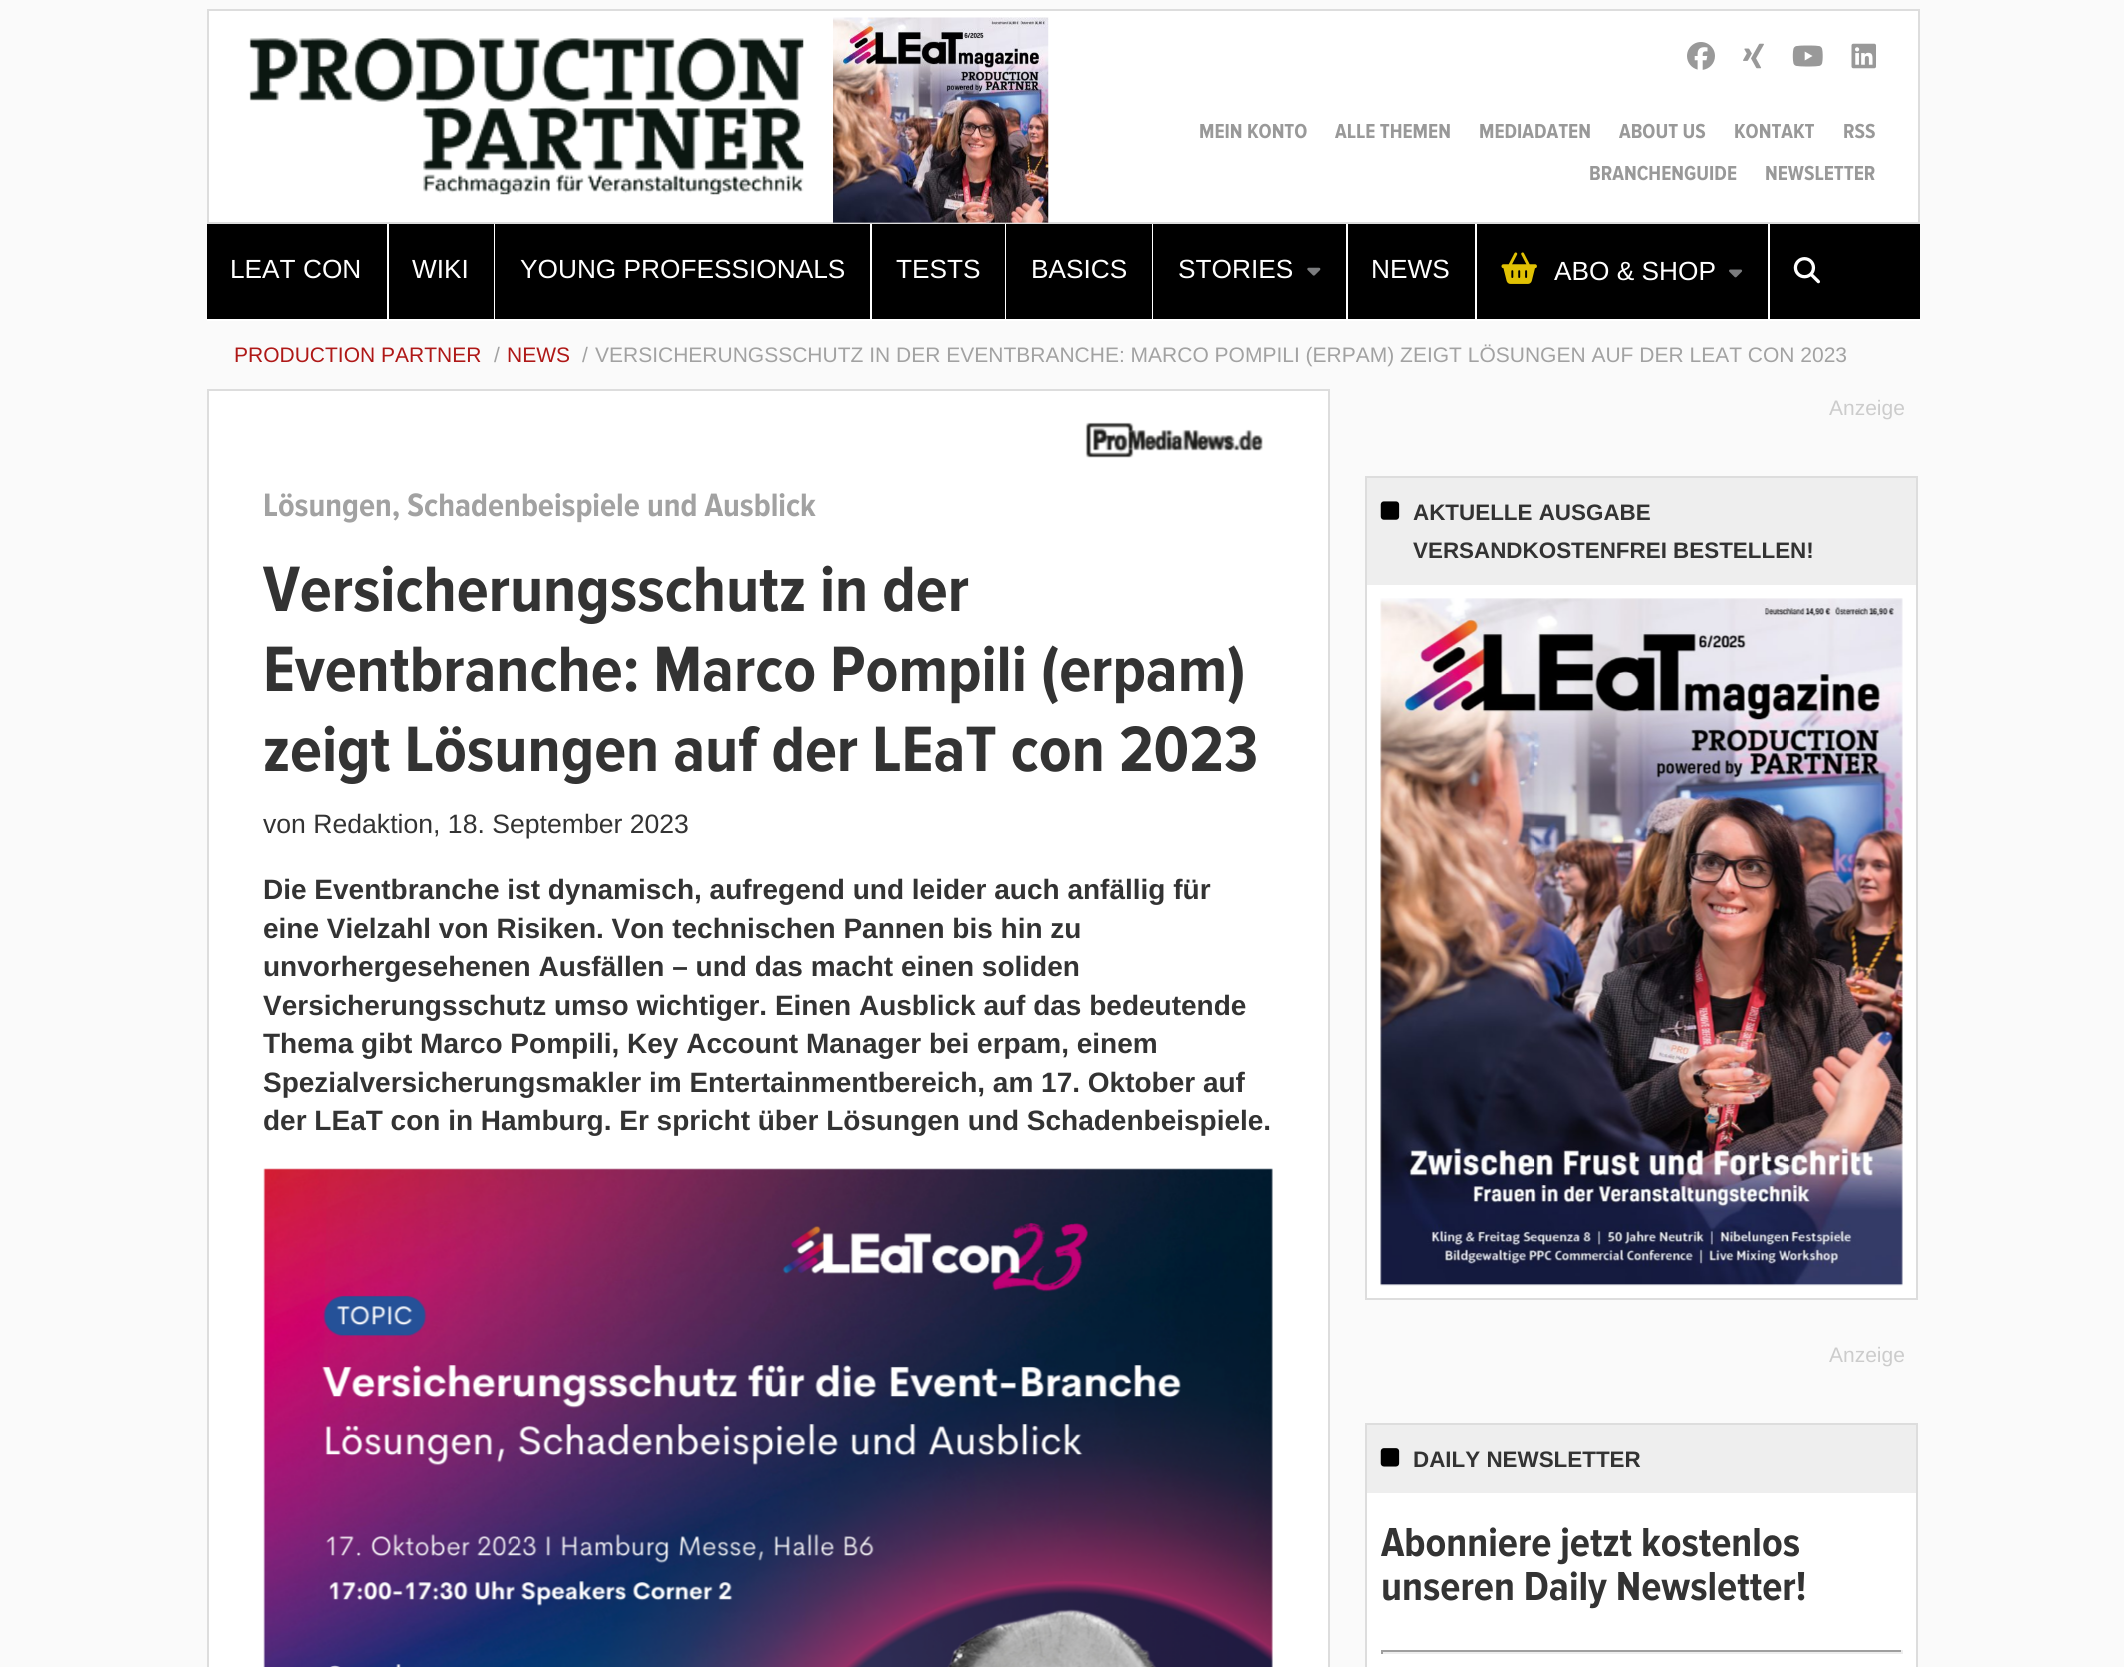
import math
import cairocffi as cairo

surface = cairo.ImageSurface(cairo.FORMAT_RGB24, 2124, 1667)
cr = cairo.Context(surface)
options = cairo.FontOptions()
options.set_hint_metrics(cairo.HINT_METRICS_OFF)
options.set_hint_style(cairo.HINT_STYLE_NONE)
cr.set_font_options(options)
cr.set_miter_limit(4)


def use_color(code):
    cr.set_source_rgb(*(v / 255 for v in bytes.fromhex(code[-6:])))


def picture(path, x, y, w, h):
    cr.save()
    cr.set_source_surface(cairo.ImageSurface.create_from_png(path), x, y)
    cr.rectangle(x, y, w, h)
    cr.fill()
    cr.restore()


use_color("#fafafa")
cr.paint()
use_color("#ffffff")
cr.rectangle(208, 10, 1711, 213)
cr.fill_preserve()
use_color("#dddddd")
cr.stroke()
picture("img1.png", 249, 38, 555, 157)
picture("img2.png", 833, 17, 216, 206)
picture("img3.png", 1687, 42, 28, 28)
picture("img4.png", 1743, 43, 21, 26)
picture("img5.png", 1792, 45, 31, 22)
picture("img6.png", 1851, 43, 25, 26)
cr.select_font_face("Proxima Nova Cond", cairo.FONT_SLANT_NORMAL, cairo.FONT_WEIGHT_BOLD)
cr.set_font_size(21)
use_color("#999999")
cr.move_to(1199, 138)
cr.show_text("MEIN KONTO")
cr.move_to(1335, 138)
cr.show_text("ALLE THEMEN")
cr.move_to(1479, 138)
cr.show_text("MEDIADATEN")
cr.move_to(1619, 138)
cr.show_text("ABOUT US")
cr.move_to(1734, 138)
cr.show_text("KONTAKT")
cr.move_to(1843, 138)
cr.show_text("RSS")
cr.move_to(1589, 180)
cr.show_text("BRANCHENGUIDE")
cr.move_to(1765, 180)
cr.show_text("NEWSLETTER")
use_color("#000000")
cr.rectangle(207, 224, 1713, 95)
cr.fill()
use_color("#ffffff")
cr.rectangle(207, 319, 1713, 2)
cr.fill()
cr.rectangle(387, 224, 2, 95)
cr.fill()
cr.select_font_face("Liberation Sans")
cr.set_font_size(26.25)
cr.move_to(230, 278)
cr.show_text("LEAT CON")
cr.rectangle(494, 224, 1, 95)
cr.fill()
cr.move_to(412, 278)
cr.show_text("WIKI")
cr.rectangle(870, 224, 2, 95)
cr.fill()
cr.move_to(520, 278)
cr.show_text("YOUNG PROFESSIONALS")
cr.rectangle(1005, 224, 1, 95)
cr.fill()
cr.move_to(896, 278)
cr.show_text("TESTS")
cr.rectangle(1152, 224, 1, 95)
cr.fill()
cr.move_to(1031, 278)
cr.show_text("BASICS")
cr.rectangle(1346, 224, 2, 95)
cr.fill()
cr.move_to(1178, 278)
cr.show_text("STORIES")
picture("img7.png", 1307, 267, 14, 9)
cr.rectangle(1475, 224, 2, 95)
cr.fill()
cr.move_to(1371, 278)
cr.show_text("NEWS")
cr.rectangle(1768, 224, 2, 95)
cr.fill()
picture("img8.png", 1501, 252, 36, 32)
cr.move_to(1554, 280)
cr.show_text("ABO & SHOP")
picture("img9.png", 1729, 269, 14, 9)
picture("img10.png", 1793, 257, 27, 27)
cr.set_font_size(21)
use_color("#af1817")
cr.move_to(234, 362)
cr.show_text("PRODUCTION PARTNER")
use_color("#a2a2a2")
cr.move_to(494, 362)
cr.show_text("/")
use_color("#af1817")
cr.move_to(507, 362)
cr.show_text("NEWS")
use_color("#a2a2a2")
cr.move_to(582, 362)
cr.show_text("/")
cr.move_to(595, 362)
cr.show_text("VERSICHERUNGSSCHUTZ IN DER EVENTBRANCHE: MARCO POMPILI (ERPAM) ZEIGT LÖSUNGEN AUF DER LEAT CON 2023")
use_color("#ffffff")
cr.rectangle(208, 390, 1121, 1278)
cr.fill_preserve()
use_color("#dddddd")
cr.stroke()
picture("img11.png", 1085, 422, 178, 36)
cr.select_font_face("Proxima Nova Cond", cairo.FONT_SLANT_NORMAL, cairo.FONT_WEIGHT_BOLD)
cr.set_font_size(33.6)
use_color("#a2a2a2")
cr.move_to(263, 516)
cr.show_text("Lösungen, Schadenbeispiele und Ausblick")
cr.set_font_size(66.5)
use_color("#333333")
cr.move_to(263, 611)
cr.show_text("Versicherungsschutz in der")
cr.move_to(263, 691)
cr.show_text("Eventbranche: Marco Pompili (erpam)")
cr.move_to(263, 771)
cr.show_text("zeigt Lösungen auf der LEaT con 2023")
cr.select_font_face("Liberation Sans")
cr.set_font_size(26.6)
cr.move_to(263, 833)
cr.show_text("von Redaktion, 18. September 2023")
cr.select_font_face("Liberation Sans", cairo.FONT_SLANT_NORMAL, cairo.FONT_WEIGHT_BOLD)
cr.set_font_size(28)
cr.move_to(263, 899)
cr.show_text("Die Eventbranche ist dynamisch, aufregend und leider auch anfällig für")
cr.move_to(263, 938)
cr.show_text("eine Vielzahl von Risiken. Von technischen Pannen bis hin zu")
cr.move_to(263, 976)
cr.show_text("unvorhergesehenen Ausfällen – und das macht einen soliden")
cr.move_to(263, 1015)
cr.show_text("Versicherungsschutz umso wichtiger. Einen Ausblick auf das bedeutende")
cr.move_to(263, 1053)
cr.show_text("Thema gibt Marco Pompili, Key Account Manager bei erpam, einem")
cr.move_to(263, 1092)
cr.show_text("Spezialversicherungsmakler im Entertainmentbereich, am 17. Oktober auf")
cr.move_to(263, 1130)
cr.show_text("der LEaT con in Hamburg. Er spricht über Lösungen und Schadenbeispiele.")
picture("img12.png", 263, 1168, 1010, 499)
cr.select_font_face("Liberation Sans")
cr.set_font_size(21)
use_color("#cccccc")
cr.move_to(1829, 415)
cr.show_text("Anzeige")
use_color("#ffffff")
cr.rectangle(1367, 585, 549, 713)
cr.fill()
cr.rectangle(1366, 477, 551, 822)
use_color("#dddddd")
cr.stroke()
use_color("#eeeeee")
cr.rectangle(1367, 478, 549, 107)
cr.fill()
picture("img13.png", 1380, 501, 20, 19)
cr.select_font_face("Liberation Sans", cairo.FONT_SLANT_NORMAL, cairo.FONT_WEIGHT_BOLD)
cr.set_font_size(22.4)
use_color("#333333")
cr.move_to(1413, 520)
cr.show_text("AKTUELLE AUSGABE")
cr.move_to(1413, 558)
cr.show_text("VERSANDKOSTENFREI BESTELLEN!")
picture("img14.png", 1380, 598, 523, 688)
cr.select_font_face("Liberation Sans")
cr.set_font_size(21)
use_color("#cccccc")
cr.move_to(1829, 1362)
cr.show_text("Anzeige")
use_color("#ffffff")
cr.rectangle(1367, 1493, 549, 174)
cr.fill()
cr.rectangle(1366, 1424, 551, 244)
use_color("#dddddd")
cr.stroke()
use_color("#eeeeee")
cr.rectangle(1367, 1425, 549, 68)
cr.fill()
picture("img15.png", 1380, 1448, 20, 19)
cr.select_font_face("Liberation Sans", cairo.FONT_SLANT_NORMAL, cairo.FONT_WEIGHT_BOLD)
cr.set_font_size(22.4)
use_color("#333333")
cr.move_to(1413, 1467)
cr.show_text("DAILY NEWSLETTER")
cr.select_font_face("Proxima Nova Cond", cairo.FONT_SLANT_NORMAL, cairo.FONT_WEIGHT_BOLD)
cr.set_font_size(42)
cr.move_to(1381, 1556)
cr.show_text("Abonniere jetzt kostenlos")
cr.move_to(1381, 1600)
cr.show_text("unseren Daily Newsletter!")
use_color("#9f9f9f")
cr.rectangle(1381, 1650, 521, 2)
cr.fill()
use_color("#eeeeee")
cr.rectangle(1901, 1650, 2, 4)
cr.fill()
cr.rectangle(1381, 1652, 521, 2)
cr.fill()
use_color("#9f9f9f")
cr.rectangle(1381, 1650, 2, 4)
cr.fill()
surface.write_to_png("result.png")
